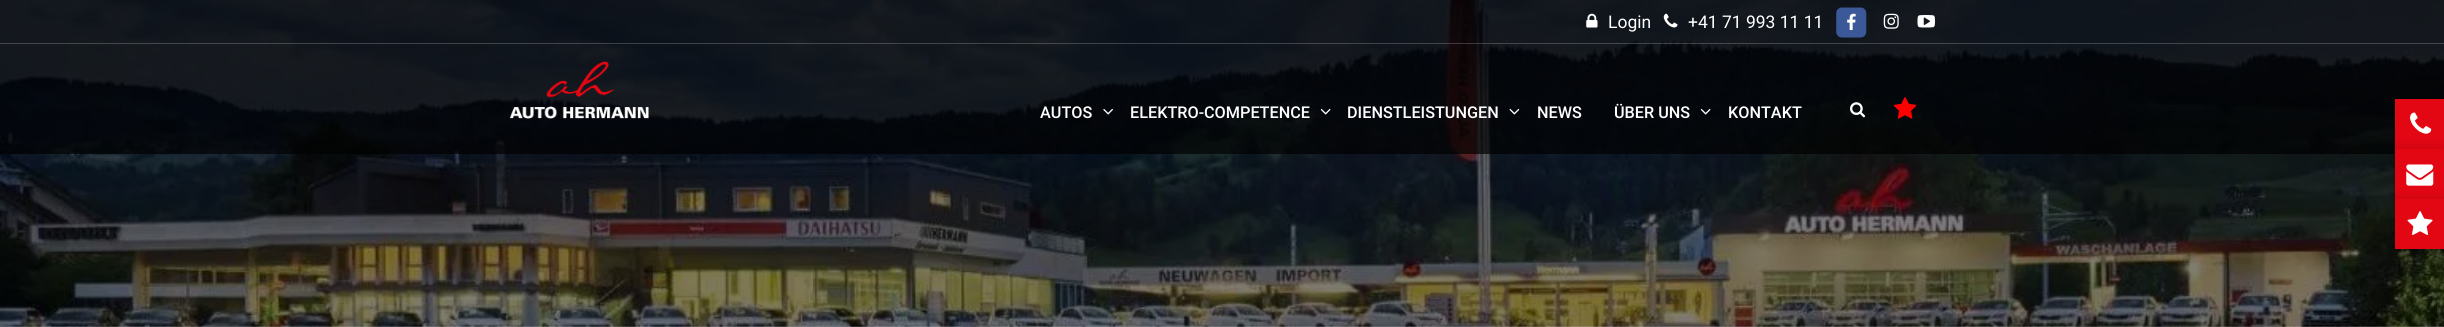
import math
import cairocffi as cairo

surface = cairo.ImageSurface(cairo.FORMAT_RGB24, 2444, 327)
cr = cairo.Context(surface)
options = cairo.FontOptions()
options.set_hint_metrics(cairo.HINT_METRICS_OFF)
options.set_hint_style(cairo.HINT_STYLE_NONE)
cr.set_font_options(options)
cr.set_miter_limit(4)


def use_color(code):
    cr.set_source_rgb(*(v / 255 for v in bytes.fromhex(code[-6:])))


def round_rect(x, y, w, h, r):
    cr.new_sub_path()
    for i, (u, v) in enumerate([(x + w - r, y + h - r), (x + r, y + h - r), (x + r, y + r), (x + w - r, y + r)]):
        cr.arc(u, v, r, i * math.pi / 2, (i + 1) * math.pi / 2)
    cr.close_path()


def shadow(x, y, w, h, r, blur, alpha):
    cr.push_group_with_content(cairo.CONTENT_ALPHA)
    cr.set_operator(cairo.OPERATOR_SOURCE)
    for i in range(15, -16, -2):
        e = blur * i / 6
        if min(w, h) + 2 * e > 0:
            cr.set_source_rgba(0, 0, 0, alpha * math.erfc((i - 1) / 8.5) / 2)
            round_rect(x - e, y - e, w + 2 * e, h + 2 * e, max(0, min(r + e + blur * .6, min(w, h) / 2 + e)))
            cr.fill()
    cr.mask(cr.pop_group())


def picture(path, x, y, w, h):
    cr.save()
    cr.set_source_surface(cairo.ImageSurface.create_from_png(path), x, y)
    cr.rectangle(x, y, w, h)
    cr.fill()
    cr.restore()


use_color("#ffffff")
cr.paint()
picture("img1.png", 0, 0, 2444, 327)
cr.set_source_rgba(0, 0, 0, 0.7)
cr.rectangle(0, 0, 2444, 154)
cr.fill()
cr.set_source_rgba(1, 1, 1, 0.2)
cr.rectangle(0, 43, 2444, 1)
cr.fill()
picture("img2.png", 1586, 13, 12, 15)
cr.select_font_face("Roboto")
cr.set_font_size(17.5)
use_color("#ffffff")
cr.move_to(1608, 28)
cr.show_text("Login")
picture("img3.png", 1663, 13, 15, 15)
cr.move_to(1688, 28)
cr.show_text("+41 71 993 11 11")
picture("img4.png", 1836, 7, 31, 31)
picture("img5.png", 1847, 13, 9, 17)
picture("img6.png", 1883, 13, 16, 16)
picture("img7.png", 1917, 15, 18, 13)
picture("img8.png", 510, 61, 139, 58)
cr.select_font_face("Roboto Medium")
cr.set_font_size(16.25)
cr.move_to(1040, 118)
cr.show_text("AUTOS")
picture("img9.png", 1103, 108, 10, 7)
cr.move_to(1130, 118)
cr.show_text("ELEKTRO-COMPETENCE")
picture("img10.png", 1320, 108, 11, 7)
cr.move_to(1347, 118)
cr.show_text("DIENSTLEISTUNGEN")
picture("img11.png", 1509, 108, 11, 7)
cr.move_to(1537, 118)
cr.show_text("NEWS")
cr.move_to(1614, 118)
cr.show_text("ÜBER UNS")
picture("img12.png", 1700, 108, 11, 7)
cr.move_to(1728, 118)
cr.show_text("KONTAKT")
picture("img13.png", 1850, 102, 16, 16)
picture("img14.png", 1893, 97, 24, 22)
use_color("#e30613")
cr.rectangle(2395, 99, 49, 50)
cr.fill()
use_color("#000000")
shadow(2395, 150, 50, 50, 0, 6, 0.2)
picture("img15.png", 2410, 112, 22, 22)
use_color("#e30613")
cr.rectangle(2395, 149, 49, 50)
cr.fill()
use_color("#000000")
shadow(2395, 200, 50, 50, 0, 6, 0.2)
picture("img16.png", 2406, 164, 28, 22)
use_color("#e30613")
cr.rectangle(2395, 199, 49, 50)
cr.fill()
picture("img17.png", 2407, 211, 26, 24)
surface.write_to_png("result.png")
